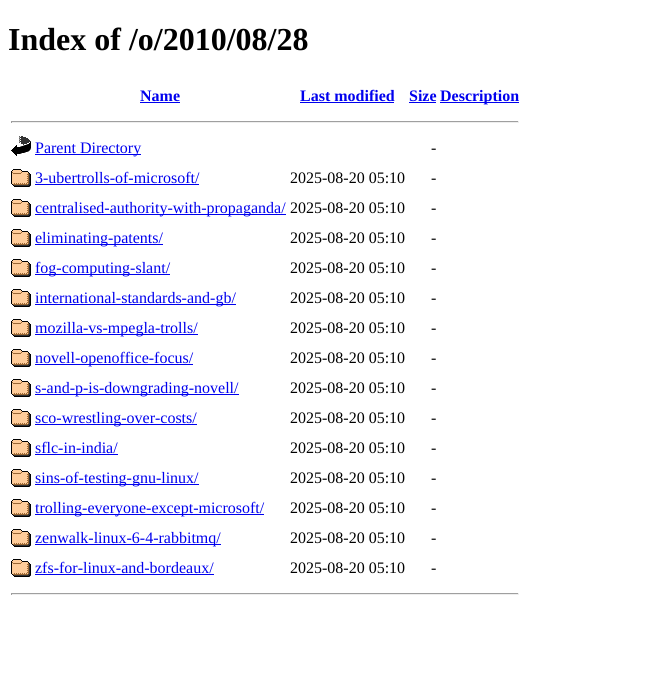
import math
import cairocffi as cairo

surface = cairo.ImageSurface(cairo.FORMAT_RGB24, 653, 689)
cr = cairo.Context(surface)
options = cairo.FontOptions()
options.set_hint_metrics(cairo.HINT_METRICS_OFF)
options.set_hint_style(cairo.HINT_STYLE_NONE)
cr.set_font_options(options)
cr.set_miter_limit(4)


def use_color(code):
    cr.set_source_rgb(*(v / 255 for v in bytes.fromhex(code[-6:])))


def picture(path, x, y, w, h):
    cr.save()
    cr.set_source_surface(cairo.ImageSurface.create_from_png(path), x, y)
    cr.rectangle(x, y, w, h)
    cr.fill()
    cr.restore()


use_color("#ffffff")
cr.paint()
cr.select_font_face("Liberation Serif", cairo.FONT_SLANT_NORMAL, cairo.FONT_WEIGHT_BOLD)
cr.set_font_size(32)
use_color("#000000")
cr.move_to(8, 50)
cr.show_text("Index of /o/2010/08/28")
cr.set_font_size(16)
use_color("#0000ee")
cr.move_to(140, 101)
cr.show_text("Name")
cr.rectangle(140, 102, 40, 1)
cr.fill()
cr.move_to(300, 101)
cr.show_text("Last modified")
cr.rectangle(300, 102, 94, 1)
cr.fill()
cr.move_to(409, 101)
cr.show_text("Size")
cr.rectangle(409, 102, 27, 1)
cr.fill()
cr.rectangle(440, 102, 79, 1)
cr.fill()
cr.move_to(440, 101)
cr.show_text("Description")
use_color("#9f9f9f")
cr.rectangle(11, 121, 508, 1)
cr.fill()
use_color("#eeeeee")
cr.rectangle(518, 121, 1, 2)
cr.fill()
cr.rectangle(11, 122, 508, 1)
cr.fill()
use_color("#9f9f9f")
cr.rectangle(11, 121, 1, 2)
cr.fill()
picture("img1.png", 11, 136, 20, 20)
use_color("#0000ee")
cr.rectangle(35, 154, 106, 1)
cr.fill()
cr.select_font_face("Liberation Serif")
cr.move_to(35, 153)
cr.show_text("Parent Directory")
use_color("#000000")
cr.move_to(431, 153)
cr.show_text("-")
picture("img2.png", 11, 169, 20, 18)
use_color("#0000ee")
cr.move_to(35, 183)
cr.show_text("3-ubertrolls-of-microsoft/")
cr.rectangle(35, 184, 164, 1)
cr.fill()
use_color("#000000")
cr.move_to(290, 183)
cr.show_text("2025-08-20 05:10")
cr.move_to(431, 183)
cr.show_text("-")
picture("img2.png", 11, 199, 20, 18)
use_color("#0000ee")
cr.rectangle(35, 214, 251, 1)
cr.fill()
cr.move_to(35, 213)
cr.show_text("centralised-authority-with-propaganda/")
use_color("#000000")
cr.move_to(290, 213)
cr.show_text("2025-08-20 05:10")
cr.move_to(431, 213)
cr.show_text("-")
picture("img2.png", 11, 229, 20, 18)
use_color("#0000ee")
cr.rectangle(35, 244, 128, 1)
cr.fill()
cr.move_to(35, 243)
cr.show_text("eliminating-patents/")
use_color("#000000")
cr.move_to(290, 243)
cr.show_text("2025-08-20 05:10")
cr.move_to(431, 243)
cr.show_text("-")
picture("img2.png", 11, 259, 20, 18)
use_color("#0000ee")
cr.rectangle(35, 274, 135, 1)
cr.fill()
cr.move_to(35, 273)
cr.show_text("fog-computing-slant/")
use_color("#000000")
cr.move_to(290, 273)
cr.show_text("2025-08-20 05:10")
cr.move_to(431, 273)
cr.show_text("-")
picture("img2.png", 11, 289, 20, 18)
use_color("#0000ee")
cr.rectangle(35, 304, 201, 1)
cr.fill()
cr.move_to(35, 303)
cr.show_text("international-standards-and-gb/")
use_color("#000000")
cr.move_to(290, 303)
cr.show_text("2025-08-20 05:10")
cr.move_to(431, 303)
cr.show_text("-")
picture("img2.png", 11, 319, 20, 18)
use_color("#0000ee")
cr.rectangle(35, 334, 163, 1)
cr.fill()
cr.move_to(35, 333)
cr.show_text("mozilla-vs-mpegla-trolls/")
use_color("#000000")
cr.move_to(290, 333)
cr.show_text("2025-08-20 05:10")
cr.move_to(431, 333)
cr.show_text("-")
picture("img2.png", 11, 349, 20, 18)
use_color("#0000ee")
cr.rectangle(35, 364, 158, 1)
cr.fill()
cr.move_to(35, 363)
cr.show_text("novell-openoffice-focus/")
use_color("#000000")
cr.move_to(290, 363)
cr.show_text("2025-08-20 05:10")
cr.move_to(431, 363)
cr.show_text("-")
picture("img2.png", 11, 379, 20, 18)
use_color("#0000ee")
cr.rectangle(35, 394, 204, 1)
cr.fill()
cr.move_to(35, 393)
cr.show_text("s-and-p-is-downgrading-novell/")
use_color("#000000")
cr.move_to(290, 393)
cr.show_text("2025-08-20 05:10")
cr.move_to(431, 393)
cr.show_text("-")
picture("img2.png", 11, 409, 20, 18)
use_color("#0000ee")
cr.rectangle(35, 424, 162, 1)
cr.fill()
cr.move_to(35, 423)
cr.show_text("sco-wrestling-over-costs/")
use_color("#000000")
cr.move_to(290, 423)
cr.show_text("2025-08-20 05:10")
cr.move_to(431, 423)
cr.show_text("-")
picture("img2.png", 11, 439, 20, 18)
use_color("#0000ee")
cr.move_to(35, 453)
cr.show_text("sflc-in-india/")
cr.rectangle(35, 454, 83, 1)
cr.fill()
use_color("#000000")
cr.move_to(290, 453)
cr.show_text("2025-08-20 05:10")
cr.move_to(431, 453)
cr.show_text("-")
picture("img2.png", 11, 469, 20, 18)
use_color("#0000ee")
cr.rectangle(35, 484, 164, 1)
cr.fill()
cr.move_to(35, 483)
cr.show_text("sins-of-testing-gnu-linux/")
use_color("#000000")
cr.move_to(290, 483)
cr.show_text("2025-08-20 05:10")
cr.move_to(431, 483)
cr.show_text("-")
picture("img2.png", 11, 499, 20, 18)
use_color("#0000ee")
cr.rectangle(35, 514, 229, 1)
cr.fill()
cr.move_to(35, 513)
cr.show_text("trolling-everyone-except-microsoft/")
use_color("#000000")
cr.move_to(290, 513)
cr.show_text("2025-08-20 05:10")
cr.move_to(431, 513)
cr.show_text("-")
picture("img2.png", 11, 529, 20, 18)
use_color("#0000ee")
cr.rectangle(35, 544, 186, 1)
cr.fill()
cr.move_to(35, 543)
cr.show_text("zenwalk-linux-6-4-rabbitmq/")
use_color("#000000")
cr.move_to(290, 543)
cr.show_text("2025-08-20 05:10")
cr.move_to(431, 543)
cr.show_text("-")
picture("img2.png", 11, 559, 20, 18)
use_color("#0000ee")
cr.move_to(35, 573)
cr.show_text("zfs-for-linux-and-bordeaux/")
cr.rectangle(35, 574, 179, 1)
cr.fill()
use_color("#000000")
cr.move_to(290, 573)
cr.show_text("2025-08-20 05:10")
cr.move_to(431, 573)
cr.show_text("-")
use_color("#9f9f9f")
cr.rectangle(11, 593, 508, 1)
cr.fill()
use_color("#eeeeee")
cr.rectangle(518, 593, 1, 2)
cr.fill()
cr.rectangle(11, 594, 508, 1)
cr.fill()
use_color("#9f9f9f")
cr.rectangle(11, 593, 1, 2)
cr.fill()
surface.write_to_png("result.png")
